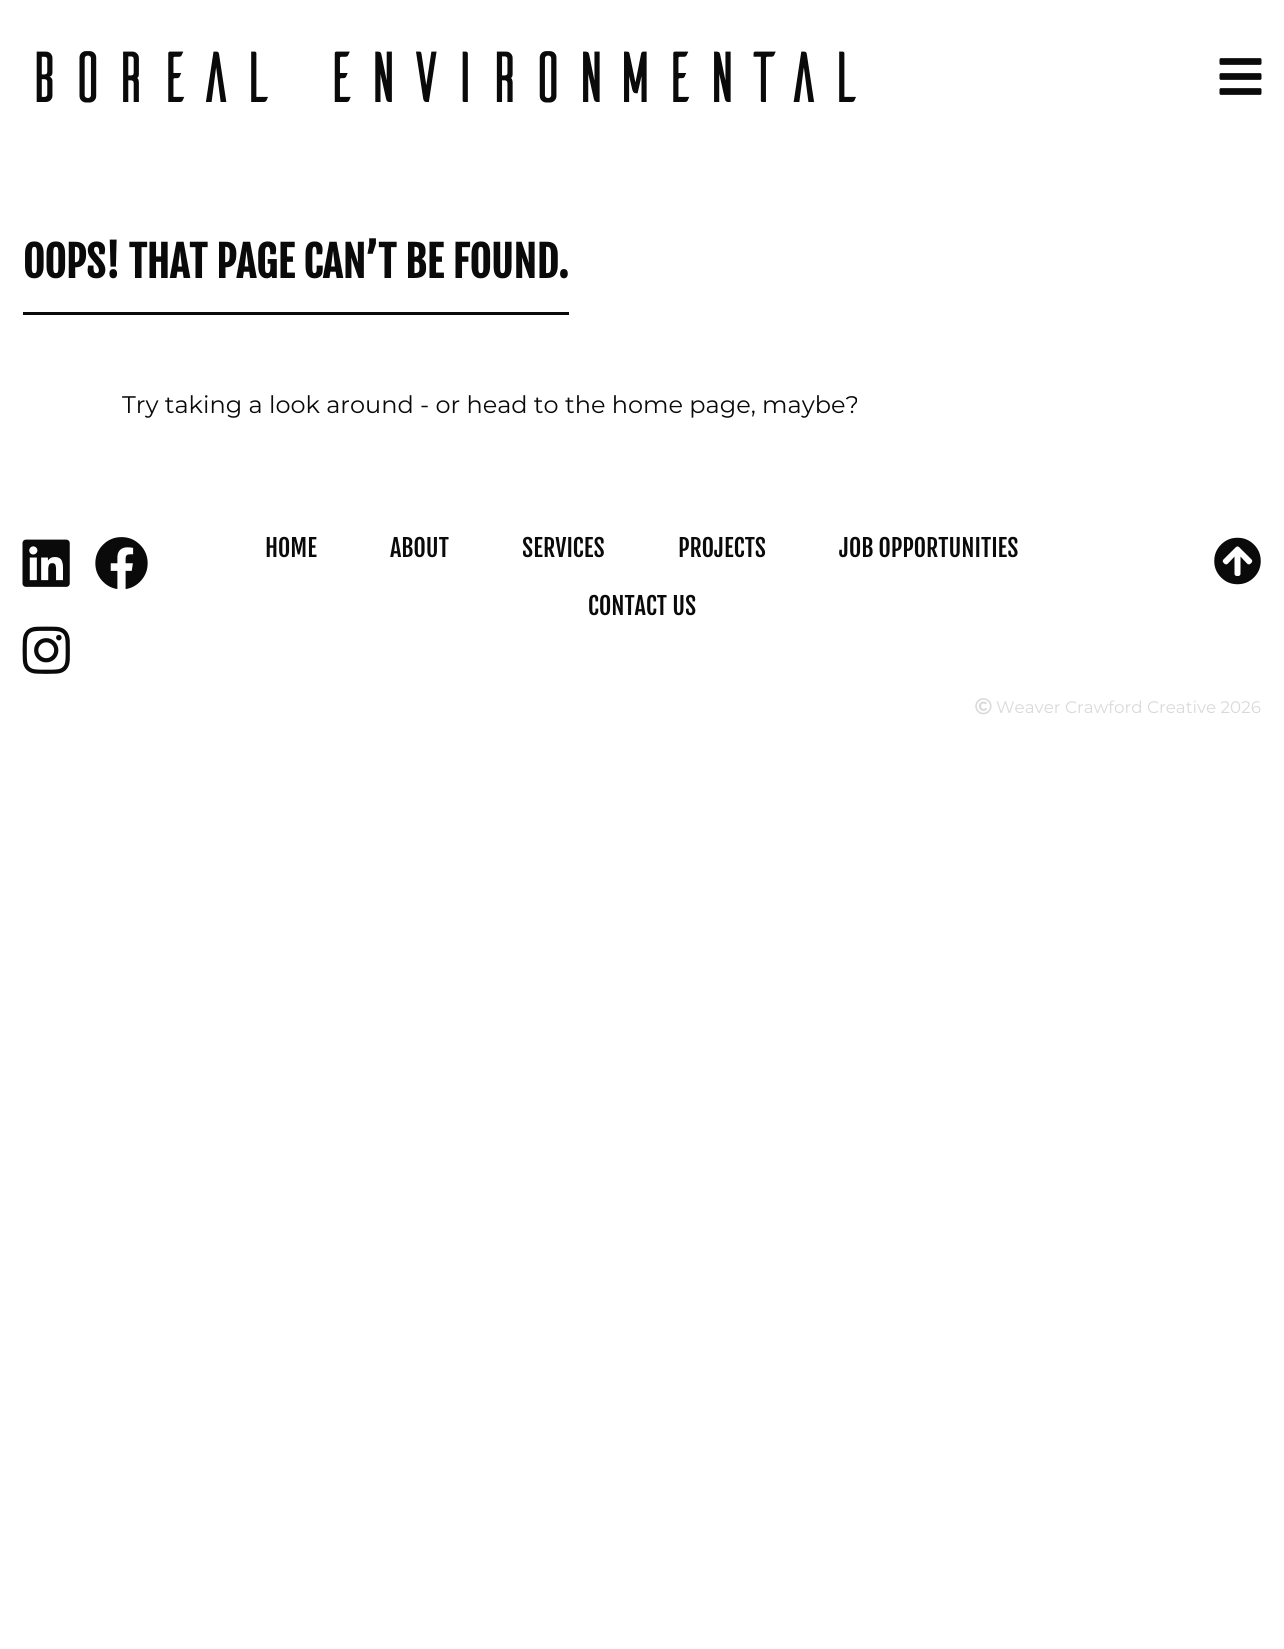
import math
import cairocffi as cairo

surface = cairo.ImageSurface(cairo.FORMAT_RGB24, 1284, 1649)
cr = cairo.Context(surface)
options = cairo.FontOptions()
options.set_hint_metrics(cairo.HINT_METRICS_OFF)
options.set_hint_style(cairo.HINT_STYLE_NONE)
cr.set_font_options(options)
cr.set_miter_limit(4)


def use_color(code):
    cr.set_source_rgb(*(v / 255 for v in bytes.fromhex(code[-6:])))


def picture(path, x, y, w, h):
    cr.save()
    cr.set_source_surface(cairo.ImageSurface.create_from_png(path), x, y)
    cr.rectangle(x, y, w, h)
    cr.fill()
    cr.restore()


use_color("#ffffff")
cr.paint()
cr.select_font_face("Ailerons")
cr.set_font_size(72)
use_color("#0a0a0a")
cr.move_to(23, 102)
cr.show_text("BOREAL ENVIRONMENTAL")
picture("img1.png", 1219, 58, 43, 37)
cr.select_font_face("Fjalla One", cairo.FONT_SLANT_NORMAL, cairo.FONT_WEIGHT_BOLD)
cr.set_font_size(42)
cr.move_to(23, 278)
cr.show_text("OOPS! THAT PAGE CAN’T BE FOUND.")
cr.rectangle(23, 312, 546, 3)
cr.fill()
cr.select_font_face("Montserrat")
cr.set_font_size(24)
cr.move_to(122, 413)
cr.show_text("Try taking a look around - or head to the home page, maybe?")
picture("img2.png", 22, 539, 48, 48)
picture("img3.png", 95, 537, 53, 52)
picture("img4.png", 22, 626, 48, 48)
cr.select_font_face("Fjalla One")
cr.move_to(265, 557)
cr.show_text("HOME")
cr.move_to(390, 557)
cr.show_text("ABOUT")
cr.move_to(522, 557)
cr.show_text("SERVICES")
cr.move_to(678, 557)
cr.show_text("PROJECTS")
cr.move_to(839, 557)
cr.show_text("JOB OPPORTUNITIES")
cr.move_to(588, 615)
cr.show_text("CONTACT US")
picture("img5.png", 1214, 537, 47, 48)
picture("img6.png", 975, 698, 17, 17)
cr.select_font_face("Montserrat")
cr.set_font_size(16.75)
use_color("#d9d9d9")
cr.move_to(996, 713)
cr.show_text("Weaver Crawford Creative 2026")
surface.write_to_png("result.png")
